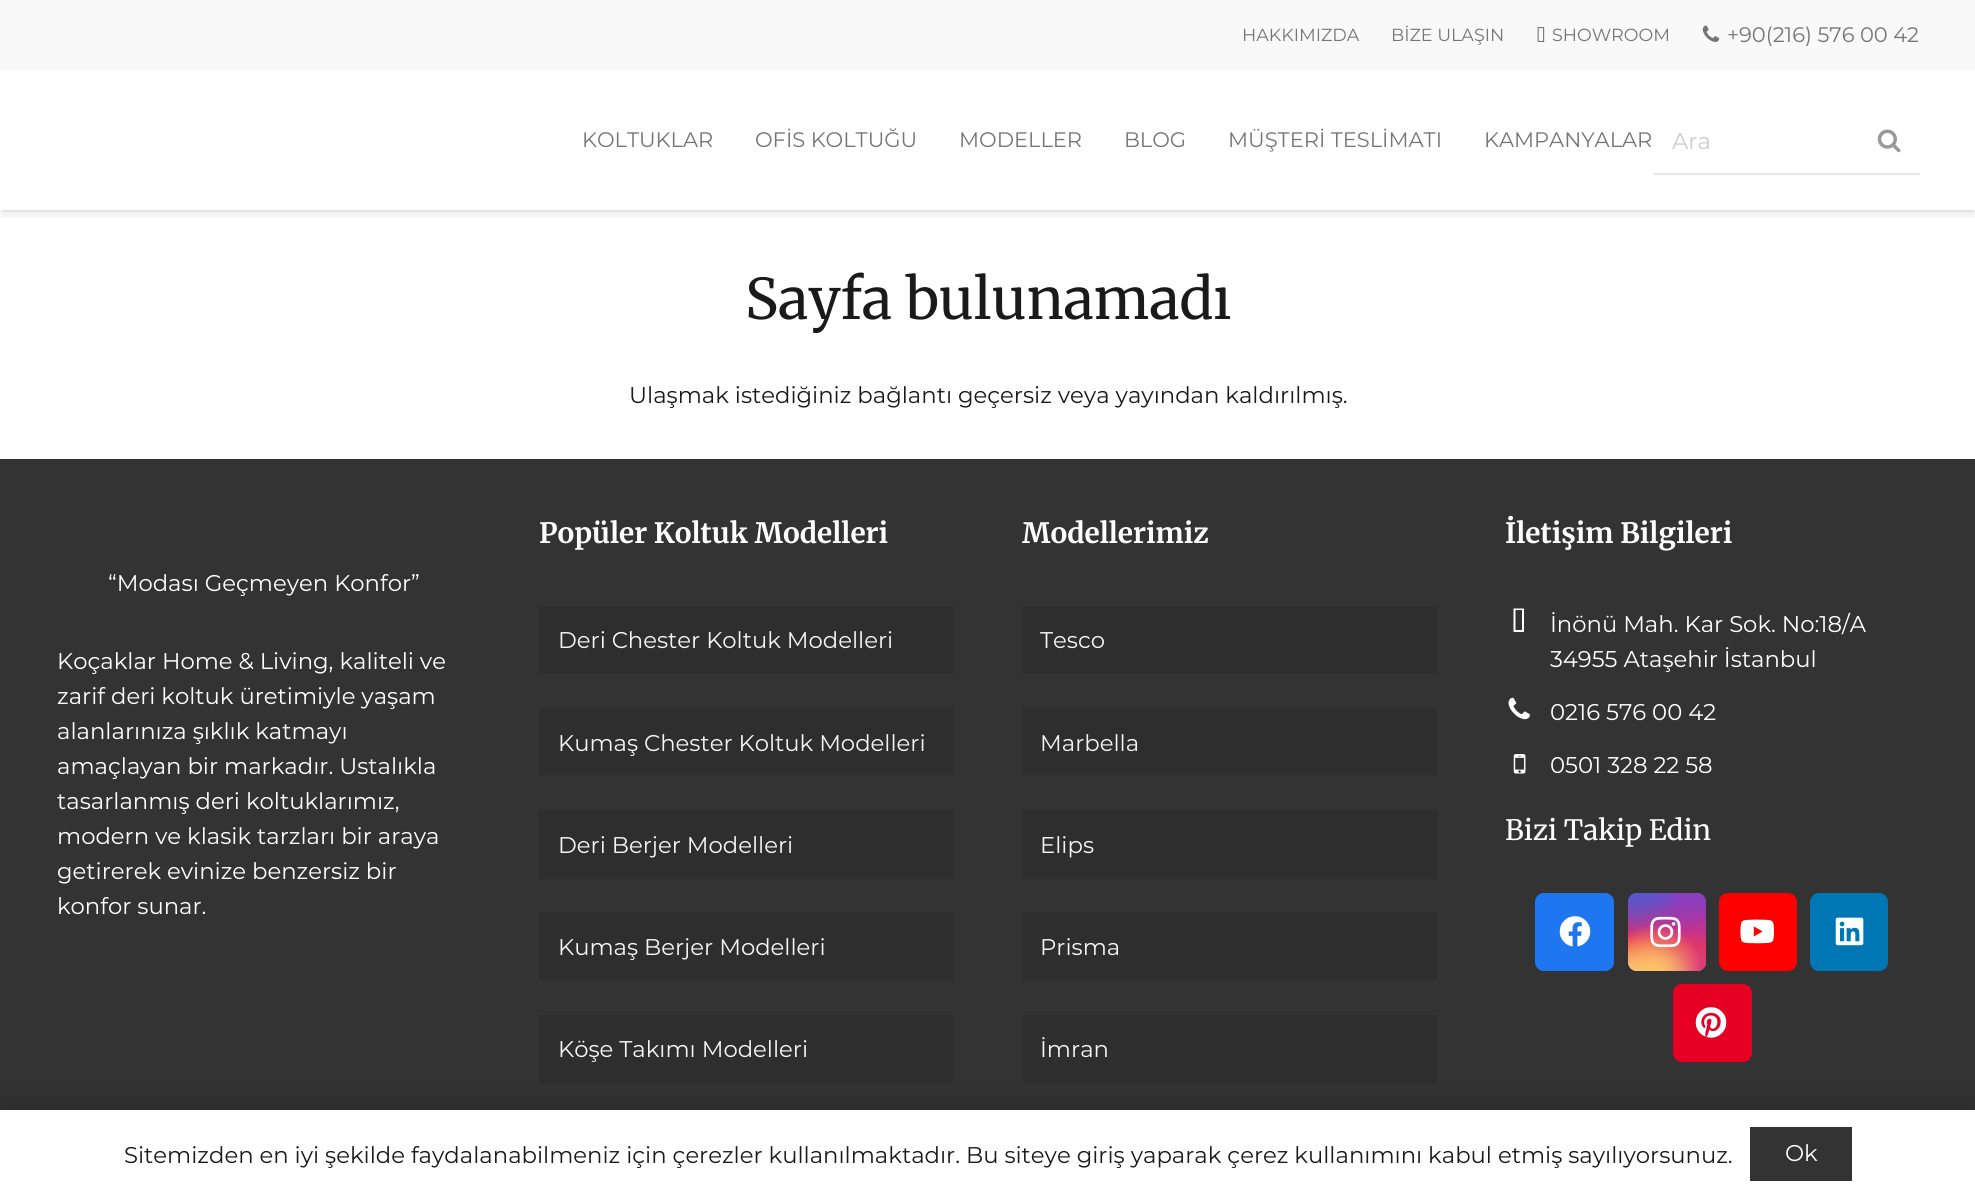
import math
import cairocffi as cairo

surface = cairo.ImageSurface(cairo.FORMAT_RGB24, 1975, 1198)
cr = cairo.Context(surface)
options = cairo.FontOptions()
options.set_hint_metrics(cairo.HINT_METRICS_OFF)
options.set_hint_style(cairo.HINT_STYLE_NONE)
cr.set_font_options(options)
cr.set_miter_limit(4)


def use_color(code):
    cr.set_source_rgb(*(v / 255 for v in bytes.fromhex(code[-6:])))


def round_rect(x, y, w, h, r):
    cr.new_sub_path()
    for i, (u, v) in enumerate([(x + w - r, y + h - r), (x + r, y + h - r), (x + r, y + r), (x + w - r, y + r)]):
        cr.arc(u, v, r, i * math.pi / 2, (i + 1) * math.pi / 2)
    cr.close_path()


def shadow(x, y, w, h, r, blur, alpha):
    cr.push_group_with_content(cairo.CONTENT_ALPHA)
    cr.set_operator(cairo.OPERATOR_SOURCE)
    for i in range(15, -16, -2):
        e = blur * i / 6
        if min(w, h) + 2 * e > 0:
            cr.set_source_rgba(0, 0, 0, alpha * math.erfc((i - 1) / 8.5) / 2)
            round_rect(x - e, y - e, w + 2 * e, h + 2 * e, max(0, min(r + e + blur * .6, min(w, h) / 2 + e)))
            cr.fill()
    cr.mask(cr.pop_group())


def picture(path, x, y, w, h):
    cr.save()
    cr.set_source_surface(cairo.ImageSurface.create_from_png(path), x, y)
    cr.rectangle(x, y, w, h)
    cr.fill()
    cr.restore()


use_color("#ffffff")
cr.paint()
use_color("#f9f9f9")
cr.rectangle(0, 0, 1975, 70)
cr.fill()
cr.select_font_face("Montserrat Thin")
cr.set_font_size(17.5)
use_color("#757575")
cr.move_to(1242, 41)
cr.show_text("HAKKIMIZDA")
cr.move_to(1391, 41)
cr.show_text("BİZE ULAŞIN")
picture("img1.png", 1537, 27, 8, 15)
cr.move_to(1552, 41)
cr.show_text("SHOWROOM")
picture("img2.png", 1702, 25, 18, 17)
cr.set_font_size(21)
cr.move_to(1727, 42)
cr.show_text("+90(216) 576 00 42")
cr.save()
cr.rectangle(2, 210, 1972, 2)
cr.clip()
use_color("#000000")
shadow(2, 75, 1972, 137, 0, 1, 0.05)
cr.restore()
cr.save()
cr.rectangle(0, 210, 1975, 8)
cr.clip()
use_color("#000000")
shadow(2, 77, 1972, 137, 0, 4.5, 0.1)
cr.restore()
cr.move_to(582, 147)
cr.show_text("KOLTUKLAR")
cr.move_to(755, 147)
cr.show_text("OFİS KOLTUĞU")
cr.move_to(959, 147)
cr.show_text("MODELLER")
cr.move_to(1124, 147)
cr.show_text("BLOG")
cr.move_to(1228, 147)
cr.show_text("MÜŞTERİ TESLİMATI")
cr.move_to(1484, 147)
cr.show_text("KAMPANYALAR")
use_color("#e8e8e8")
cr.rectangle(1654, 173, 266, 2)
cr.fill()
cr.set_font_size(22.75)
use_color("#cccccc")
cr.move_to(1672, 149)
cr.show_text("Ara")
picture("img3.png", 1877, 129, 24, 24)
cr.select_font_face("Merriweather")
cr.set_font_size(56)
use_color("#1a1a1a")
cr.move_to(745, 319)
cr.show_text("Sayfa bulunamadı")
cr.select_font_face("Montserrat Thin")
cr.set_font_size(22.75)
cr.move_to(629, 403)
cr.show_text("Ulaşmak istediğiniz bağlantı geçersiz veya yayından kaldırılmış.")
use_color("#333333")
cr.rectangle(0, 459, 1975, 651)
cr.fill()
use_color("#ffffff")
cr.move_to(108, 591)
cr.show_text("“Modası Geçmeyen Konfor”")
cr.move_to(57, 669)
cr.show_text("Koçaklar Home & Living, kaliteli ve")
cr.move_to(57, 704)
cr.show_text("zarif deri koltuk üretimiyle yaşam")
cr.move_to(57, 739)
cr.show_text("alanlarınıza şıklık katmayı")
cr.move_to(57, 774)
cr.show_text("amaçlayan bir markadır. Ustalıkla")
cr.move_to(57, 809)
cr.show_text("tasarlanmış deri koltuklarımız,")
cr.move_to(57, 844)
cr.show_text("modern ve klasik tarzları bir araya")
cr.move_to(57, 879)
cr.show_text("getirerek evinize benzersiz bir")
cr.move_to(57, 914)
cr.show_text("konfor sunar.")
cr.select_font_face("Merriweather", cairo.FONT_SLANT_NORMAL, cairo.FONT_WEIGHT_BOLD)
cr.set_font_size(28)
cr.move_to(539, 543)
cr.show_text("Popüler Koltuk Modelleri")
use_color("#2e2e2e")
cr.rectangle(539, 606, 415, 68)
cr.fill()
cr.select_font_face("Montserrat Thin")
cr.set_font_size(22.75)
use_color("#f5f5f5")
cr.move_to(558, 648)
cr.show_text("Deri Chester Koltuk Modelleri")
use_color("#2e2e2e")
cr.rectangle(539, 707, 415, 68)
cr.fill()
use_color("#f5f5f5")
cr.move_to(558, 751)
cr.show_text("Kumaş Chester Koltuk Modelleri")
use_color("#2e2e2e")
cr.rectangle(539, 810, 415, 69)
cr.fill()
use_color("#f5f5f5")
cr.move_to(558, 853)
cr.show_text("Deri Berjer Modelleri")
use_color("#2e2e2e")
cr.rectangle(539, 912, 415, 68)
cr.fill()
use_color("#f5f5f5")
cr.move_to(558, 955)
cr.show_text("Kumaş Berjer Modelleri")
use_color("#2e2e2e")
cr.rectangle(539, 1015, 415, 68)
cr.fill()
use_color("#f5f5f5")
cr.move_to(558, 1057)
cr.show_text("Köşe Takımı Modelleri")
cr.select_font_face("Merriweather", cairo.FONT_SLANT_NORMAL, cairo.FONT_WEIGHT_BOLD)
cr.set_font_size(28)
use_color("#ffffff")
cr.move_to(1022, 543)
cr.show_text("Modellerimiz")
use_color("#2e2e2e")
cr.rectangle(1022, 606, 415, 68)
cr.fill()
cr.select_font_face("Montserrat Thin")
cr.set_font_size(22.75)
use_color("#f5f5f5")
cr.move_to(1040, 648)
cr.show_text("Tesco")
use_color("#2e2e2e")
cr.rectangle(1022, 707, 415, 68)
cr.fill()
use_color("#f5f5f5")
cr.move_to(1040, 751)
cr.show_text("Marbella")
use_color("#2e2e2e")
cr.rectangle(1022, 810, 415, 69)
cr.fill()
use_color("#f5f5f5")
cr.move_to(1040, 853)
cr.show_text("Elips")
use_color("#2e2e2e")
cr.rectangle(1022, 912, 415, 68)
cr.fill()
use_color("#f5f5f5")
cr.move_to(1040, 955)
cr.show_text("Prisma")
use_color("#2e2e2e")
cr.rectangle(1022, 1015, 415, 68)
cr.fill()
use_color("#f5f5f5")
cr.move_to(1040, 1057)
cr.show_text("İmran")
cr.select_font_face("Merriweather", cairo.FONT_SLANT_NORMAL, cairo.FONT_WEIGHT_BOLD)
cr.set_font_size(28)
use_color("#ffffff")
cr.move_to(1505, 543)
cr.show_text("İletişim Bilgileri")
cr.new_path()
cr.move_to(1515.5, 630)
cr.line_to(1515.5, 610)
cr.line_to(1522, 610)
cr.line_to(1522, 630)
cr.close_path()
cr.move_to(1513.5, 632)
cr.line_to(1524, 632)
cr.line_to(1524, 608.5)
cr.line_to(1513.5, 608.5)
cr.close_path()
cr.fill()
cr.select_font_face("Montserrat Thin")
cr.set_font_size(22.75)
cr.move_to(1550, 632)
cr.show_text("İnönü Mah. Kar Sok. No:18/A")
cr.move_to(1550, 667)
cr.show_text("34955 Ataşehir İstanbul")
picture("img4.png", 1508, 697, 22, 23)
cr.move_to(1550, 720)
cr.show_text("0216 576 00 42")
picture("img5.png", 1513, 754, 13, 20)
cr.move_to(1550, 773)
cr.show_text("0501 328 22 58")
cr.select_font_face("Merriweather")
cr.set_font_size(28)
cr.move_to(1505, 840)
cr.show_text("Bizi Takip Edin")
use_color("#1e77f0")
round_rect(1535, 893, 79, 78, 9)
cr.fill()
picture("img6.png", 1559, 916, 32, 31)
gradient = cairo.LinearGradient(1667, 893, 1667, 971)
gradient.add_color_stop_rgba(0, 0.396, 0.349, 0.792, 1)
gradient.add_color_stop_rgba(0.3, 0.737, 0.192, 0.561, 1)
gradient.add_color_stop_rgba(0.5, 0.894, 0.18, 0.4, 1)
gradient.add_color_stop_rgba(0.7, 0.98, 0.325, 0.196, 1)
gradient.add_color_stop_rgba(1, 1, 0.863, 0.502, 1)
cr.set_source(gradient)
round_rect(1628, 893, 78, 78, 9)
cr.fill()
gradient = cairo.RadialGradient(1706, 971, 0, 1706, 971, 111)
gradient.add_color_stop_rgba(0, 0.851, 0.192, 0.478, 1)
gradient.add_color_stop_rgba(1, 0.851, 0.192, 0.478, 0)
cr.set_source(gradient)
round_rect(1628, 893, 78, 78, 9)
cr.fill()
gradient = cairo.RadialGradient(0, 0, 0, 0, 0, 1)
gradient.set_matrix(cairo.Matrix(1 / 67, 0, 0, 1 / 134, -1 * 1675 / 67, -1 * 877 / 134))
gradient.add_color_stop_rgba(0, 0.537, 0.239, 0.761, 1)
gradient.add_color_stop_rgba(0.5, 0.537, 0.239, 0.761, 0)
cr.set_source(gradient)
round_rect(1628, 893, 78, 78, 9)
cr.fill()
gradient = cairo.RadialGradient(1706, 893, 0, 1706, 893, 111)
gradient.add_color_stop_rgba(0, 0.537, 0.239, 0.761, 1)
gradient.add_color_stop_rgba(0.5, 0.537, 0.239, 0.761, 0)
cr.set_source(gradient)
round_rect(1628, 893, 78, 78, 9)
cr.fill()
gradient = cairo.RadialGradient(0, 0, 0, 0, 0, 1)
gradient.set_matrix(cairo.Matrix(1 / 89, 0, 0, 1 / 167, -1 * 1643 / 89, -1 * 853 / 167))
gradient.add_color_stop_rgba(0, 0.322, 0.345, 0.812, 1)
gradient.add_color_stop_rgba(0.5, 0.322, 0.345, 0.812, 0)
cr.set_source(gradient)
round_rect(1628, 893, 78, 78, 9)
cr.fill()
gradient = cairo.RadialGradient(0, 0, 0, 0, 0, 1)
gradient.set_matrix(cairo.Matrix(1 / 111, 0, 0, 1 / 139, -1 * 1628 / 111, -1 * 873 / 139))
gradient.add_color_stop_rgba(0, 0.322, 0.345, 0.812, 1)
gradient.add_color_stop_rgba(0.5, 0.322, 0.345, 0.812, 0)
cr.set_source(gradient)
round_rect(1628, 893, 78, 78, 9)
cr.fill()
gradient = cairo.RadialGradient(1635, 1003, 0, 1635, 1003, 131)
gradient.add_color_stop_rgba(0, 0.996, 0.855, 0.494, 1)
gradient.add_color_stop_rgba(0.5, 0.996, 0.855, 0.494, 0)
cr.set_source(gradient)
round_rect(1628, 893, 78, 78, 9)
cr.fill()
gradient = cairo.RadialGradient(1655, 971, 0, 1655, 971, 94)
gradient.add_color_stop_rgba(0, 0.996, 0.773, 0.392, 1)
gradient.add_color_stop_rgba(0.5, 0.996, 0.773, 0.392, 0)
cr.set_source(gradient)
round_rect(1628, 893, 78, 78, 9)
cr.fill()
picture("img7.png", 1650, 916, 31, 32)
use_color("#ff0000")
round_rect(1719, 893, 78, 78, 9)
cr.fill()
picture("img8.png", 1740, 919, 34, 25)
use_color("#0077b5")
round_rect(1810, 893, 78, 78, 9)
cr.fill()
picture("img9.png", 1835, 917, 29, 29)
use_color("#e60023")
round_rect(1673, 984, 79, 78, 9)
cr.fill()
picture("img10.png", 1695, 1007, 32, 31)
use_color("#000000")
shadow(0, 1101, 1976, 89, 0, 13, 0.15)
use_color("#ffffff")
cr.rectangle(0, 1110, 1975, 88)
cr.fill()
cr.select_font_face("Montserrat Thin")
cr.set_font_size(22.75)
use_color("#1a1a1a")
cr.move_to(124, 1163)
cr.show_text("Sitemizden en iyi şekilde faydalanabilmeniz için çerezler kullanılmaktadır. Bu siteye giriş yaparak çerez kullanımını kabul etmiş sayılıyorsunuz.")
use_color("#333333")
cr.rectangle(1750, 1127, 102, 54)
cr.fill()
use_color("#ffffff")
cr.move_to(1785, 1161)
cr.show_text("Ok")
surface.write_to_png("result.png")
